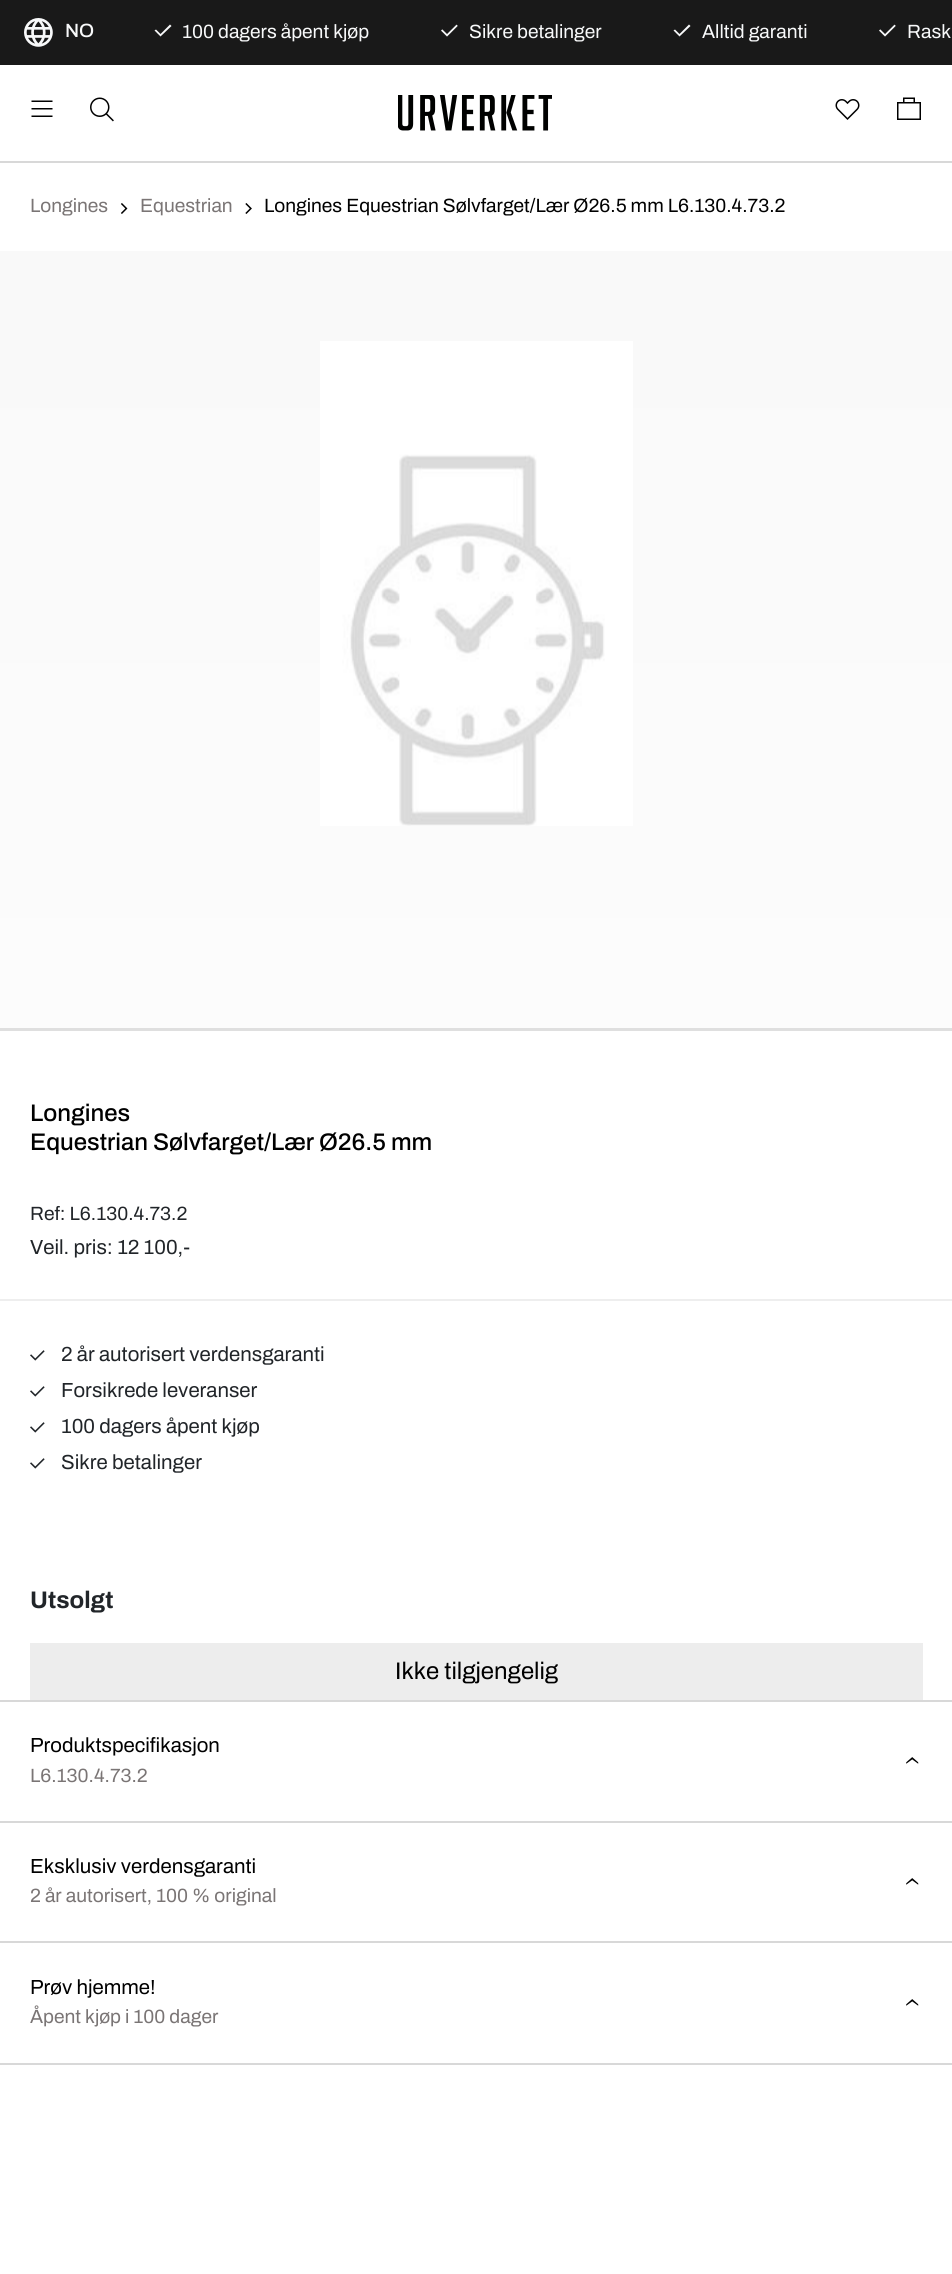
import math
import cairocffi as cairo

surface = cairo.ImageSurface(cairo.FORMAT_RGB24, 952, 2274)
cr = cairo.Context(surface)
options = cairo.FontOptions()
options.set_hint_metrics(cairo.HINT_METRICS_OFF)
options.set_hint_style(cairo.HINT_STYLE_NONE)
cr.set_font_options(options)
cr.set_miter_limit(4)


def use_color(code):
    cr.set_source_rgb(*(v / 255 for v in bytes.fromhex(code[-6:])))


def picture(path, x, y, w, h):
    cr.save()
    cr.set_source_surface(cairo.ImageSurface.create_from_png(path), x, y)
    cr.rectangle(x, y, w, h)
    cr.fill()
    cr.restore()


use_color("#ffffff")
cr.paint()
use_color("#191919")
cr.rectangle(0, 0, 952, 65)
cr.fill()
picture("img1.png", 24, 18, 29, 29)
cr.select_font_face("Archivo Medium")
cr.set_font_size(19.2)
use_color("#f8f9fa")
cr.move_to(65, 37)
cr.show_text("NO")
cr.new_path()
cr.move_to(171.5, 26)
cr.line_to(160.5, 36.5)
cr.line_to(154.5, 30.5)
cr.line_to(156, 29.5)
cr.line_to(160.5, 34)
cr.line_to(170, 24.5)
cr.close_path()
cr.fill()
cr.select_font_face("Archivo")
cr.move_to(182, 38)
cr.show_text("100 dagers åpent kjøp")
picture("img2.png", 441, 24, 17, 13)
cr.move_to(469, 38)
cr.show_text("Sikre betalinger")
cr.new_path()
cr.move_to(690.5, 26)
cr.line_to(679.5, 36.5)
cr.line_to(673.5, 30.5)
cr.line_to(675, 29.5)
cr.line_to(679.5, 34)
cr.line_to(689, 24.5)
cr.close_path()
cr.fill()
cr.move_to(702, 38)
cr.show_text("Alltid garanti")
picture("img2.png", 879, 24, 17, 13)
cr.move_to(907, 38)
cr.show_text("Rask")
picture("img3.png", 31, 100, 22, 17)
picture("img4.png", 90, 97, 24, 25)
picture("img5.png", 398, 95, 154, 36)
picture("img6.png", 835, 99, 25, 21)
picture("img7.png", 897, 97, 24, 23)
use_color("#d8d8d8")
cr.rectangle(0, 161, 952, 2)
cr.fill()
use_color("#7a7575")
cr.move_to(30, 212)
cr.show_text("Longines")
picture("img8.png", 121, 203, 7, 11)
cr.move_to(140, 212)
cr.show_text("Equestrian")
picture("img9.png", 245, 203, 7, 11)
use_color("#000000")
cr.move_to(264, 212)
cr.show_text("Longines Equestrian Sølvfarget/Lær Ø26.5 mm L6.130.4.73.2")
gradient = cairo.LinearGradient(476, 250, 476, 1031)
gradient.add_color_stop_rgba(0, 0.976, 0.976, 0.976, 1)
gradient.add_color_stop_rgba(1, 0.988, 0.988, 0.988, 1)
cr.set_source(gradient)
cr.rectangle(0, 251, 952, 777)
cr.fill()
picture("img10.png", 320, 341, 313, 485)
use_color("#dfdfdf")
cr.rectangle(0, 1028, 952, 3)
cr.fill()
cr.select_font_face("Archivo Medium")
cr.set_font_size(24)
use_color("#000000")
cr.move_to(30, 1121)
cr.show_text("Longines")
cr.move_to(30, 1150)
cr.show_text("Equestrian Sølvfarget/Lær Ø26.5 mm")
cr.select_font_face("Archivo")
cr.set_font_size(19.2)
use_color("#212529")
cr.move_to(30, 1220)
cr.show_text("Ref: L6.130.4.73.2")
cr.set_font_size(20.4)
cr.move_to(30, 1254)
cr.show_text("Veil. pris: 12 100,-")
use_color("#eeeeee")
cr.rectangle(0, 1299, 952, 2)
cr.fill()
picture("img11.png", 30, 1350, 15, 11)
use_color("#212529")
cr.move_to(61, 1361)
cr.show_text("2 år autorisert verdensgaranti")
picture("img11.png", 30, 1386, 15, 11)
cr.move_to(61, 1397)
cr.show_text("Forsikrede leveranser")
picture("img11.png", 30, 1422, 15, 11)
cr.move_to(61, 1433)
cr.show_text("100 dagers åpent kjøp")
picture("img11.png", 30, 1458, 15, 11)
cr.move_to(61, 1469)
cr.show_text("Sikre betalinger")
cr.select_font_face("Archivo", cairo.FONT_SLANT_NORMAL, cairo.FONT_WEIGHT_BOLD)
cr.set_font_size(24)
cr.move_to(30, 1608)
cr.show_text("Utsolgt")
use_color("#ededed")
cr.rectangle(30, 1643, 893, 57)
cr.fill()
cr.select_font_face("Archivo")
use_color("#000000")
cr.move_to(395, 1679)
cr.show_text("Ikke tilgjengelig")
use_color("#d8d8d8")
cr.rectangle(0, 1700, 952, 2)
cr.fill()
cr.rectangle(0, 1821, 952, 2)
cr.fill()
cr.set_font_size(20.4)
use_color("#000000")
cr.move_to(30, 1752)
cr.show_text("Produktspecifikasjon")
cr.select_font_face("Archivo Thin")
cr.set_font_size(30)
cr.save()
cr.translate(922, 1766)
cr.rotate(-90 * math.pi / 180)
cr.move_to(0, 0)
cr.show_text("›")
cr.restore()
cr.select_font_face("Archivo")
cr.set_font_size(19.2)
use_color("#7a7575")
cr.move_to(30, 1782)
cr.show_text("L6.130.4.73.2")
use_color("#d8d8d8")
cr.rectangle(0, 1941, 952, 2)
cr.fill()
cr.set_font_size(20.4)
use_color("#000000")
cr.move_to(30, 1873)
cr.show_text("Eksklusiv verdensgaranti")
cr.select_font_face("Archivo Thin")
cr.set_font_size(30)
cr.save()
cr.translate(922, 1887)
cr.rotate(-90 * math.pi / 180)
cr.move_to(0, 0)
cr.show_text("›")
cr.restore()
cr.select_font_face("Archivo")
cr.set_font_size(19.2)
use_color("#7a7575")
cr.move_to(30, 1902)
cr.show_text("2 år autorisert, 100 % original")
use_color("#d8d8d8")
cr.rectangle(0, 2063, 952, 2)
cr.fill()
cr.set_font_size(20.4)
use_color("#000000")
cr.move_to(30, 1994)
cr.show_text("Prøv hjemme!")
cr.select_font_face("Archivo Thin")
cr.set_font_size(30)
cr.save()
cr.translate(922, 2008)
cr.rotate(-90 * math.pi / 180)
cr.move_to(0, 0)
cr.show_text("›")
cr.restore()
cr.select_font_face("Archivo")
cr.set_font_size(19.2)
use_color("#7a7575")
cr.move_to(30, 2023)
cr.show_text("Åpent kjøp i 100 dager")
surface.write_to_png("result.png")
